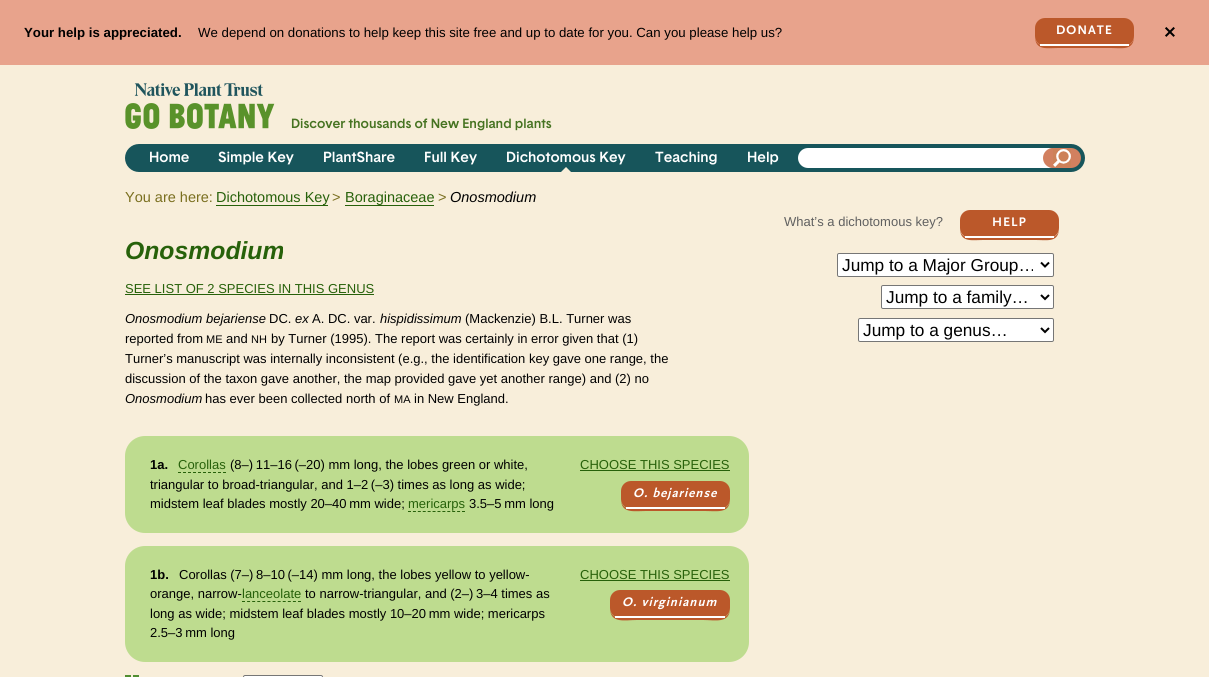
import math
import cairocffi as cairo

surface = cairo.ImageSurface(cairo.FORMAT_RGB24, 1209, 677)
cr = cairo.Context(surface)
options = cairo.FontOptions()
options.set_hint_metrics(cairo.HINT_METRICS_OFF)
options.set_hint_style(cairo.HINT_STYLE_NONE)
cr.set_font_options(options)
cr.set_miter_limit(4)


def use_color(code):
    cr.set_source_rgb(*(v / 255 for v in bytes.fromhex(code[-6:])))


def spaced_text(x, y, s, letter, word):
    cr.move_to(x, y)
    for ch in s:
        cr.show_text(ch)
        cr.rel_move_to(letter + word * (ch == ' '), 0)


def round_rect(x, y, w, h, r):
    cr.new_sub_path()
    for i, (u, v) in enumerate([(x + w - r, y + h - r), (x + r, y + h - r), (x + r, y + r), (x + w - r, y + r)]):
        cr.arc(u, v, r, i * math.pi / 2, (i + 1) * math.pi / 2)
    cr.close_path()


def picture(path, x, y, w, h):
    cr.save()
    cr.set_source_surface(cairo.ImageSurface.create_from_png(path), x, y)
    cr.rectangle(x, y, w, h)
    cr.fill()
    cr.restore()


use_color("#f8eeda")
cr.paint()
use_color("#e8a38c")
cr.rectangle(0, 0, 1209, 65)
cr.fill()
cr.select_font_face("Liberation Sans", cairo.FONT_SLANT_NORMAL, cairo.FONT_WEIGHT_BOLD)
cr.set_font_size(13.25)
use_color("#000000")
cr.move_to(24, 37)
cr.show_text("Your help is appreciated.")
cr.select_font_face("Liberation Sans")
cr.move_to(198, 37)
cr.show_text("We depend on donations to help keep this site free and up to date for you. Can you please help us?")
use_color("#bb582a")
cr.new_path()
cr.move_to(1035, 36)
cr.curve_to(1035, 51, 1047, 48, 1058, 48)
cr.line_to(1111, 48)
cr.curve_to(1122, 48, 1134, 51, 1134, 36)
cr.curve_to(1134, 42, 1130, 46, 1124, 46)
cr.line_to(1045, 46)
cr.curve_to(1039, 46, 1035, 42, 1035, 36)
cr.close_path()
cr.fill()
round_rect(1035, 18, 99, 28, 10)
cr.fill()
use_color("#ffffff")
cr.rectangle(1040, 44, 89, 2)
cr.fill()
cr.select_font_face("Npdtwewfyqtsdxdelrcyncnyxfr", cairo.FONT_SLANT_NORMAL, cairo.FONT_WEIGHT_BOLD)
cr.set_font_size(13)
spaced_text(1056, 34, "DONATE", 1, 0)
cr.select_font_face("DejaVu Sans", cairo.FONT_SLANT_NORMAL, cairo.FONT_WEIGHT_BOLD)
cr.set_font_size(16)
use_color("#000000")
cr.move_to(1163, 38)
cr.show_text("✕")
picture("img1.png", 125, 83, 150, 46)
cr.select_font_face("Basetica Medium")
cr.set_font_size(13)
use_color("#467321")
cr.move_to(291, 128)
cr.show_text("Discover thousands of New England plants")
use_color("#17555b")
round_rect(125, 144, 960, 28, 14)
cr.fill()
cr.set_font_size(14.25)
use_color("#ffffff")
cr.move_to(149, 162)
cr.show_text("Home")
cr.move_to(218, 162)
cr.show_text("Simple Key")
cr.move_to(323, 162)
cr.show_text("PlantShare")
cr.move_to(424, 162)
cr.show_text("Full Key")
cr.move_to(506, 162)
cr.show_text("Dichotomous Key")
use_color("#f8eeda")
cr.new_path()
cr.move_to(576, 177)
cr.line_to(556, 177)
cr.line_to(566, 167)
cr.close_path()
cr.fill()
use_color("#ffffff")
cr.move_to(655, 162)
cr.show_text("Teaching")
cr.move_to(747, 162)
cr.show_text("Help")
round_rect(798, 148, 261, 20, 10)
cr.fill()
use_color("#d2805f")
round_rect(1043, 148, 38, 20, 10)
cr.fill()
picture("img2.png", 1053, 149, 18, 18)
cr.select_font_face("Liberation Sans")
cr.set_font_size(14.5)
use_color("#7a6f1f")
cr.move_to(125, 202)
cr.show_text("You are here:")
use_color("#27610a")
cr.move_to(216, 202)
cr.show_text("Dichotomous Key")
cr.rectangle(216, 205, 112, 1)
cr.fill()
use_color("#7a6f1f")
cr.move_to(332, 202)
cr.show_text(">")
use_color("#27610a")
cr.move_to(345, 202)
cr.show_text("Boraginaceae")
cr.rectangle(345, 205, 89, 1)
cr.fill()
use_color("#7a6f1f")
cr.move_to(438, 202)
cr.show_text(">")
cr.select_font_face("Liberation Sans", cairo.FONT_SLANT_ITALIC)
use_color("#000000")
cr.move_to(450, 202)
cr.show_text("Onosmodium")
cr.select_font_face("Liberation Sans", cairo.FONT_SLANT_ITALIC, cairo.FONT_WEIGHT_BOLD)
cr.set_font_size(24.75)
use_color("#27610a")
cr.move_to(125, 259)
cr.show_text("Onosmodium")
cr.select_font_face("Liberation Sans")
cr.set_font_size(13)
use_color("#606060")
cr.move_to(784, 226)
cr.show_text("What’s a dichotomous key?")
use_color("#bb582a")
cr.new_path()
cr.move_to(960, 228)
cr.curve_to(960, 243, 972, 240, 983, 240)
cr.line_to(1036, 240)
cr.curve_to(1047, 240, 1059, 243, 1059, 228)
cr.curve_to(1059, 234, 1055, 238, 1049, 238)
cr.line_to(970, 238)
cr.curve_to(964, 238, 960, 234, 960, 228)
cr.close_path()
cr.fill()
round_rect(960, 210, 99, 28, 10)
cr.fill()
use_color("#ffffff")
cr.rectangle(965, 236, 89, 2)
cr.fill()
cr.select_font_face("Npdtwewfyqtsdxdelrcyncnyxfr", cairo.FONT_SLANT_NORMAL, cairo.FONT_WEIGHT_BOLD)
spaced_text(992, 226, "HELP", 1, 0)
round_rect(837.5, 253.5, 216, 23, 1.5)
cr.fill_preserve()
use_color("#767676")
cr.set_line_width(1)
cr.stroke()
cr.new_path()
cr.move_to(1041, 262.5)
cr.line_to(1045, 266.5)
cr.line_to(1049, 262.5)
use_color("#000000")
cr.set_line_width(2)
cr.stroke()
cr.select_font_face("Liberation Sans")
cr.set_font_size(17.25)
cr.move_to(842, 271)
cr.show_text("Jump to a Major Group…")
use_color("#ffffff")
round_rect(881.5, 285.5, 172, 23, 1.5)
cr.fill_preserve()
use_color("#767676")
cr.set_line_width(1)
cr.stroke()
cr.new_path()
cr.move_to(1041, 295)
cr.line_to(1045, 299)
cr.line_to(1049, 295)
use_color("#000000")
cr.set_line_width(2)
cr.stroke()
cr.move_to(886, 303)
cr.show_text("Jump to a family…")
use_color("#ffffff")
round_rect(858.5, 318.5, 195, 23, 1.5)
cr.fill_preserve()
use_color("#767676")
cr.set_line_width(1)
cr.stroke()
cr.new_path()
cr.move_to(1041, 328)
cr.line_to(1045, 332)
cr.line_to(1049, 328)
use_color("#000000")
cr.set_line_width(2)
cr.stroke()
cr.move_to(863, 336)
cr.show_text("Jump to a genus…")
cr.set_font_size(13)
use_color("#27610a")
cr.move_to(125, 293)
cr.show_text("SEE LIST OF 2 SPECIES IN THIS GENUS")
cr.rectangle(125, 294, 249, 1)
cr.fill()
cr.select_font_face("Liberation Sans", cairo.FONT_SLANT_ITALIC)
use_color("#000000")
cr.move_to(125, 323)
cr.show_text("Onosmodium bejariense")
cr.select_font_face("Liberation Sans")
cr.move_to(269, 323)
cr.show_text("DC.")
cr.select_font_face("Liberation Sans", cairo.FONT_SLANT_ITALIC)
cr.move_to(295, 323)
cr.show_text("ex")
cr.select_font_face("Liberation Sans")
cr.move_to(312, 323)
cr.show_text("A. DC. var.")
cr.select_font_face("Liberation Sans", cairo.FONT_SLANT_ITALIC)
cr.move_to(380, 323)
cr.show_text("hispidissimum")
cr.select_font_face("Liberation Sans")
cr.move_to(465, 323)
cr.show_text("(Mackenzie) B.L. Turner was")
cr.move_to(125, 343)
cr.show_text("reported from")
cr.set_font_size(11)
cr.move_to(206, 343)
cr.show_text("ME")
cr.set_font_size(13)
cr.move_to(226, 343)
cr.show_text("and")
cr.set_font_size(11)
cr.move_to(251, 343)
cr.show_text("NH")
cr.set_font_size(13)
cr.move_to(271, 343)
cr.show_text("by Turner (1995). The report was certainly in error given that (1)")
cr.move_to(125, 363)
cr.show_text("Turner’s manuscript was internally inconsistent (e.g., the identification key gave one range, the")
cr.move_to(125, 383)
cr.show_text("discussion of the taxon gave another, the map provided gave yet another range) and (2) no")
cr.select_font_face("Liberation Sans", cairo.FONT_SLANT_ITALIC)
cr.move_to(125, 403)
cr.show_text("Onosmodium")
cr.select_font_face("Liberation Sans")
cr.move_to(205, 403)
cr.show_text("has ever been collected north of")
cr.set_font_size(11)
cr.move_to(394, 403)
cr.show_text("MA")
cr.set_font_size(13)
cr.move_to(414, 403)
cr.show_text("in New England.")
use_color("#bedc8f")
round_rect(128, 439, 618, 91, 17)
cr.fill_preserve()
cr.set_line_width(6)
cr.stroke()
cr.select_font_face("Liberation Sans", cairo.FONT_SLANT_NORMAL, cairo.FONT_WEIGHT_BOLD)
use_color("#000000")
cr.move_to(150, 469)
cr.show_text("1a.")
cr.select_font_face("Liberation Sans")
use_color("#27610a")
cr.move_to(178, 469)
cr.show_text("Corollas")
cr.new_path()
cr.move_to(178, 472.5)
cr.line_to(226, 472.5)
cr.set_line_width(1)
cr.set_dash([3, 2])
cr.stroke()
use_color("#000000")
cr.move_to(230, 469)
cr.show_text("(8–) 11–16 (–20) mm long, the lobes green or white,")
use_color("#27610a")
cr.move_to(580, 469)
cr.show_text("CHOOSE THIS SPECIES")
cr.rectangle(580, 470, 150, 1)
cr.fill()
use_color("#bb582a")
cr.new_path()
cr.move_to(621, 499)
cr.curve_to(621, 514, 634, 511, 646, 511)
cr.line_to(705, 511)
cr.curve_to(717, 511, 730, 514, 730, 499)
cr.curve_to(730, 505, 726, 509, 720, 509)
cr.line_to(631, 509)
cr.curve_to(625, 509, 621, 505, 621, 499)
cr.close_path()
cr.fill()
round_rect(621, 481, 109, 28, 10)
cr.fill()
use_color("#ffffff")
cr.rectangle(626, 507, 99, 2)
cr.fill()
cr.select_font_face("Npdtwewfyqtsdxdelrcyncnyxfr", cairo.FONT_SLANT_ITALIC, cairo.FONT_WEIGHT_BOLD)
spaced_text(633, 497, "O. bejariense", 1, 0)
cr.select_font_face("Liberation Sans")
use_color("#000000")
cr.move_to(150, 489)
cr.show_text("triangular to broad-triangular, and 1–2 (–3) times as long as wide;")
cr.move_to(150, 508)
cr.show_text("midstem leaf blades mostly 20–40 mm wide;")
use_color("#27610a")
cr.move_to(408, 508)
cr.show_text("mericarps")
cr.new_path()
cr.move_to(408, 511.5)
cr.line_to(465, 511.5)
cr.set_dash([3, 1.91])
cr.stroke()
use_color("#000000")
cr.move_to(469, 508)
cr.show_text("3.5–5 mm long")
use_color("#bedc8f")
round_rect(128, 549, 618, 110, 17)
cr.fill_preserve()
cr.set_line_width(6)
cr.set_dash([])
cr.stroke()
cr.select_font_face("Liberation Sans", cairo.FONT_SLANT_NORMAL, cairo.FONT_WEIGHT_BOLD)
use_color("#000000")
cr.move_to(150, 579)
cr.show_text("1b.")
cr.select_font_face("Liberation Sans")
cr.move_to(179, 579)
cr.show_text("Corollas (7–) 8–10 (–14) mm long, the lobes yellow to yellow-")
use_color("#27610a")
cr.move_to(580, 579)
cr.show_text("CHOOSE THIS SPECIES")
cr.rectangle(580, 580, 150, 1)
cr.fill()
use_color("#bb582a")
cr.new_path()
cr.move_to(610, 608)
cr.curve_to(610, 624, 625, 620, 637, 620)
cr.line_to(703, 620)
cr.curve_to(715, 620, 730, 624, 730, 608)
cr.curve_to(730, 614, 726, 618, 720, 618)
cr.line_to(620, 618)
cr.curve_to(614, 618, 610, 614, 610, 608)
cr.close_path()
cr.fill()
round_rect(610, 590, 120, 28, 10)
cr.fill()
use_color("#ffffff")
cr.rectangle(615, 616, 110, 2)
cr.fill()
cr.select_font_face("Npdtwewfyqtsdxdelrcyncnyxfr", cairo.FONT_SLANT_ITALIC, cairo.FONT_WEIGHT_BOLD)
spaced_text(622, 606, "O. virginianum", 1, 0)
cr.select_font_face("Liberation Sans")
use_color("#000000")
cr.move_to(150, 598)
cr.show_text("orange, narrow-")
use_color("#27610a")
cr.move_to(242, 598)
cr.show_text("lanceolate")
cr.new_path()
cr.move_to(242, 601.5)
cr.line_to(301, 601.5)
cr.set_line_width(1)
cr.set_dash([3, 2.09])
cr.stroke()
use_color("#000000")
cr.move_to(305, 598)
cr.show_text("to narrow-triangular, and (2–) 3–4 times as")
cr.move_to(150, 618)
cr.show_text("long as wide; midstem leaf blades mostly 10–20 mm wide; mericarps")
cr.move_to(150, 637)
cr.show_text("2.5–3 mm long")
picture("img3.png", 125, 675, 14, 2)
use_color("#ffffff")
round_rect(243.5, 675.5, 79, 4, 1.5)
cr.fill_preserve()
use_color("#767676")
cr.set_dash([])
cr.stroke()
surface.write_to_png("result.png")
